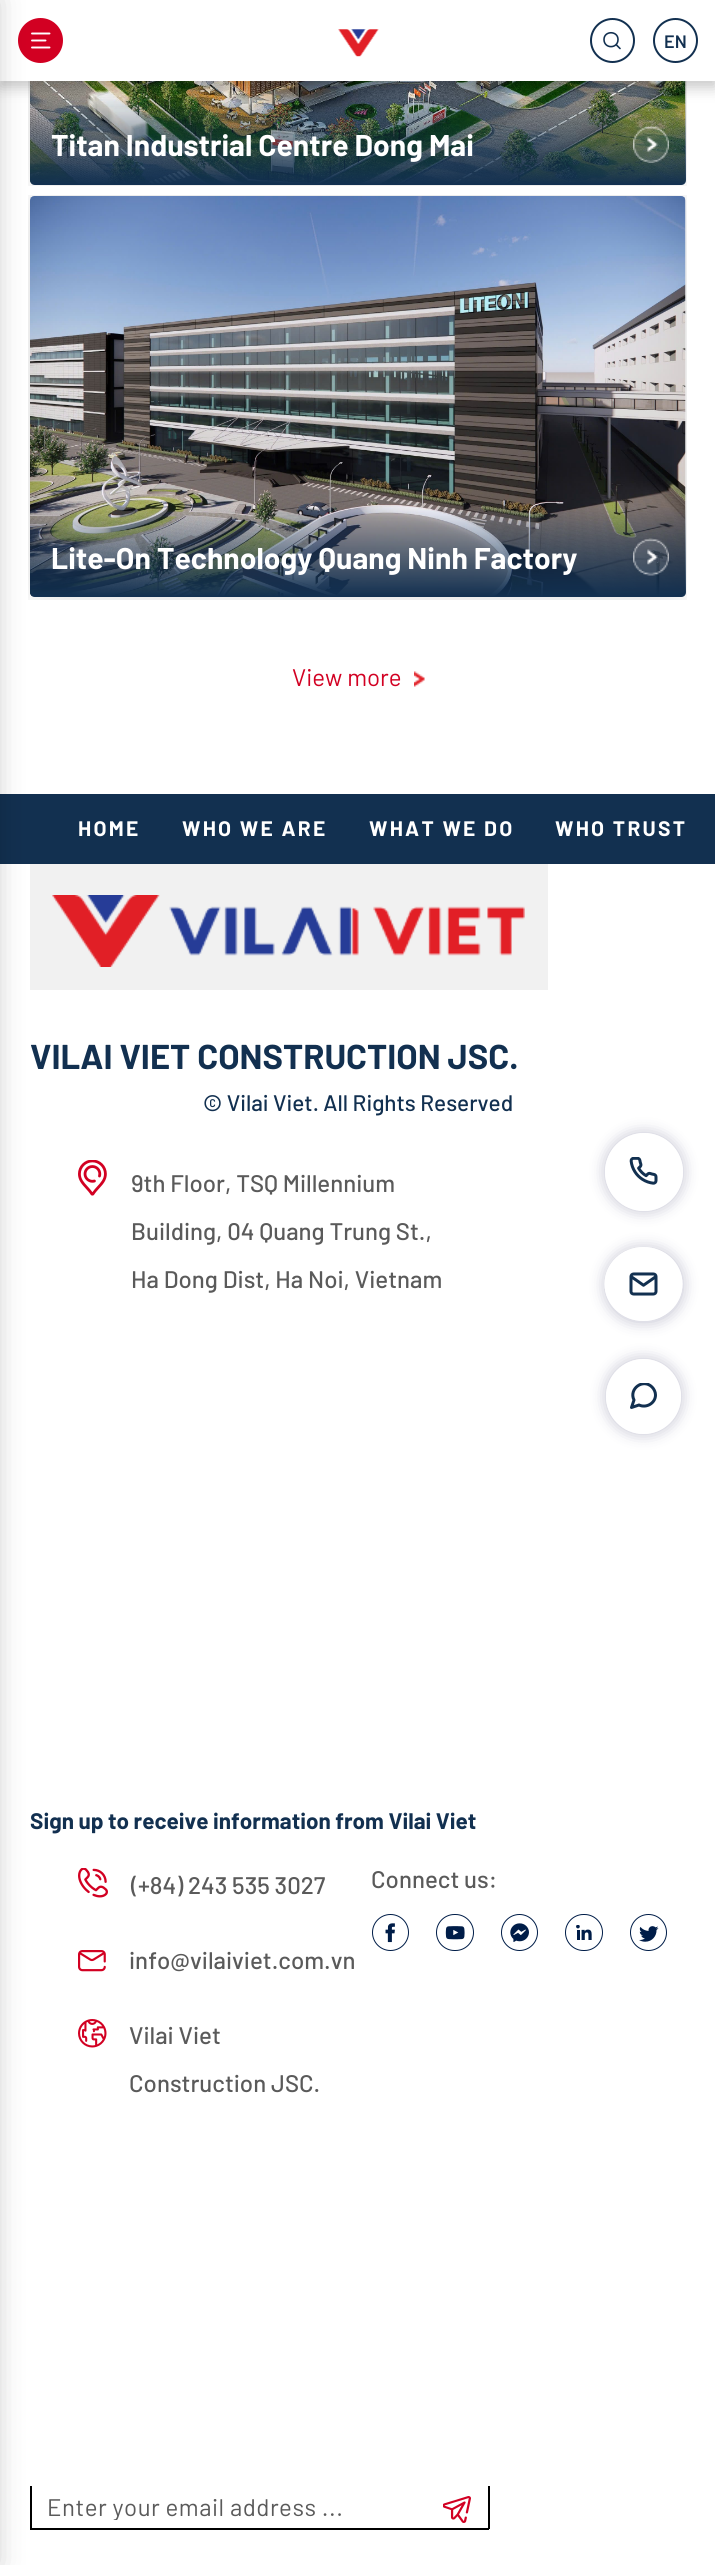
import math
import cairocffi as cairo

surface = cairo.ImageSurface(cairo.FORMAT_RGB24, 715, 2565)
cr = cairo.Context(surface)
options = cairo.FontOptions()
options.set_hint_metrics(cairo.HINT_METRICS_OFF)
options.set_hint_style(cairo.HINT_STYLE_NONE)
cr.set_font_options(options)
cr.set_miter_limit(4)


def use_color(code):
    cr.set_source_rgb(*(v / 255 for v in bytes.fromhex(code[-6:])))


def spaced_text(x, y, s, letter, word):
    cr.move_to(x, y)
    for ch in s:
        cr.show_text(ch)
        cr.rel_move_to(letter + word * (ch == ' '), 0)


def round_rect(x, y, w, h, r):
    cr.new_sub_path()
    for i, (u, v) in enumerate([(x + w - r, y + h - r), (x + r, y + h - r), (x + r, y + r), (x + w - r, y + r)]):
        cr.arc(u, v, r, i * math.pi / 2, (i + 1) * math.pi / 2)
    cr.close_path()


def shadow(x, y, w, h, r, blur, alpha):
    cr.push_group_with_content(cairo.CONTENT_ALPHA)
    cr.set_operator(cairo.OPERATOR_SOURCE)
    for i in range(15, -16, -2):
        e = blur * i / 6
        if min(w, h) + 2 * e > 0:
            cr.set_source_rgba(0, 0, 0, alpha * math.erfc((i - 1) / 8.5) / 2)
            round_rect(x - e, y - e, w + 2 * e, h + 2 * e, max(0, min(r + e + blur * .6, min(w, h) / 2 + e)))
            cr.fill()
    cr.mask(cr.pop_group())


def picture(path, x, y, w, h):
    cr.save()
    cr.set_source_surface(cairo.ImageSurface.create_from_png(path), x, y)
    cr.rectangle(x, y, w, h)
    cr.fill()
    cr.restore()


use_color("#ffffff")
cr.paint()
picture("img4.png", 28, 81, 659, 105)
gradient = cairo.LinearGradient(358, 185, 358, 95)
gradient.add_color_stop_rgba(0, 0.071, 0.188, 0.314, 1)
gradient.add_color_stop_rgba(1, 0.071, 0.188, 0.314, 0)
cr.set_source(gradient)
cr.new_path()
cr.move_to(30, 95)
cr.line_to(686, 95)
cr.line_to(686, 180)
cr.curve_to(686, 183, 684, 185, 681, 185)
cr.line_to(35, 185)
cr.curve_to(32, 185, 30, 183, 30, 180)
cr.close_path()
cr.fill()
use_color("#000000")
shadow(0, 6, 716, 81, 0, 7.5, 0.23)
use_color("#ffffff")
cr.rectangle(0, 0, 715, 81)
cr.fill()
use_color("#d20022")
cr.arc(40.5, 40.5, 22.5, 0, 2 * math.pi)
cr.fill()
cr.new_path()
cr.move_to(32, 40.5)
cr.line_to(45.5, 40.5)
cr.move_to(32, 33.5)
cr.line_to(49.5, 33.5)
cr.move_to(32, 47.5)
cr.line_to(49.5, 47.5)
use_color("#ffffff")
cr.set_line_width(1.9)
cr.set_line_cap(cairo.LINE_CAP_ROUND)
cr.set_line_join(cairo.LINE_JOIN_ROUND)
cr.stroke()
picture("img6.png", 28, 195, 659, 405)
gradient = cairo.LinearGradient(358, 597, 358, 507)
gradient.add_color_stop_rgba(0, 0.071, 0.188, 0.314, 1)
gradient.add_color_stop_rgba(1, 0.071, 0.188, 0.314, 0)
cr.set_source(gradient)
cr.new_path()
cr.move_to(30, 507)
cr.line_to(686, 507)
cr.line_to(686, 592)
cr.curve_to(686, 595, 684, 597, 681, 597)
cr.line_to(35, 597)
cr.curve_to(32, 597, 30, 595, 30, 592)
cr.close_path()
cr.fill()
use_color("#123050")
cr.rectangle(0, 794, 715, 70)
cr.fill()
use_color("#f1f1f1")
cr.rectangle(30, 864, 518, 126)
cr.fill()
use_color("#000000")
cr.rectangle(488, 2486, 2, 43)
cr.fill()
cr.rectangle(30, 2528, 459, 2)
cr.fill()
cr.rectangle(30, 2486, 2, 43)
cr.fill()
use_color("#000000")
shadow(-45, 0, 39, 2565, 0, 15, 0.25)
picture("img1.png", 338, 29, 41, 28)
cr.arc(612.5, 40.5, 21.5, 0, 2 * math.pi)
use_color("#123050")
cr.set_line_width(2)
cr.set_line_cap(cairo.LINE_CAP_BUTT)
cr.set_line_join(cairo.LINE_JOIN_MITER)
cr.stroke()
cr.new_path()
cr.move_to(620, 48.5)
cr.line_to(616, 44.5)
cr.move_to(618, 39.5)
cr.curve_to(618, 49, 604, 49, 604, 39.5)
cr.curve_to(604, 30.5, 618, 30.5, 618, 39.5)
cr.close_path()
cr.set_line_width(1.6)
cr.set_line_cap(cairo.LINE_CAP_ROUND)
cr.set_line_join(cairo.LINE_JOIN_ROUND)
cr.stroke()
cr.arc(675.5, 40.5, 21.5, 0, 2 * math.pi)
cr.set_line_width(2)
cr.set_line_cap(cairo.LINE_CAP_BUTT)
cr.set_line_join(cairo.LINE_JOIN_MITER)
cr.stroke()
cr.select_font_face("Barlow SemiBold")
cr.set_font_size(18)
cr.move_to(664, 48)
cr.show_text("EN")
cr.save()
cr.set_fill_rule(cairo.FILL_RULE_EVEN_ODD)
cr.new_path()
cr.move_to(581, 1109)
cr.line_to(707, 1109)
cr.line_to(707, 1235)
cr.line_to(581, 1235)
cr.close_path()
cr.move_to(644, 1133)
cr.curve_to(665.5, 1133, 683, 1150.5, 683, 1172)
cr.curve_to(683, 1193.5, 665.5, 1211, 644, 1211)
cr.curve_to(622.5, 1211, 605, 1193.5, 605, 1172)
cr.curve_to(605, 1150.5, 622.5, 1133, 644, 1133)
cr.close_path()
cr.clip()
use_color("#070644")
shadow(605, 1133, 78, 78, 39, 7.5, 0.25)
cr.restore()
cr.set_source_rgba(1, 1, 1, 0.5)
cr.arc(644, 1172, 39, 0, 2 * math.pi)
cr.fill()
picture("img2.png", 629, 1157, 29, 28)
cr.save()
cr.set_fill_rule(cairo.FILL_RULE_EVEN_ODD)
cr.new_path()
cr.move_to(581, 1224)
cr.line_to(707, 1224)
cr.line_to(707, 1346)
cr.line_to(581, 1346)
cr.close_path()
cr.move_to(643.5, 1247)
cr.curve_to(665, 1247, 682.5, 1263.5, 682.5, 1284)
cr.curve_to(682.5, 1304.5, 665, 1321, 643.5, 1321)
cr.curve_to(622, 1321, 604.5, 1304.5, 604.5, 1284)
cr.curve_to(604.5, 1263.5, 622, 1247, 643.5, 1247)
cr.close_path()
cr.clip()
use_color("#070644")
shadow(605, 1248, 78, 74, 37, 7.5, 0.25)
cr.restore()
cr.new_path()
cr.move_to(643.5, 1247)
cr.curve_to(665, 1247, 682.5, 1263.5, 682.5, 1284)
cr.curve_to(682.5, 1304.5, 665, 1321, 643.5, 1321)
cr.curve_to(622, 1321, 604.5, 1304.5, 604.5, 1284)
cr.curve_to(604.5, 1263.5, 622, 1247, 643.5, 1247)
cr.close_path()
cr.fill()
picture("img3.png", 629, 1272, 29, 24)
cr.save()
cr.set_fill_rule(cairo.FILL_RULE_EVEN_ODD)
cr.new_path()
cr.move_to(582, 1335)
cr.line_to(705, 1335)
cr.line_to(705, 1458)
cr.line_to(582, 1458)
cr.close_path()
cr.move_to(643.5, 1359)
cr.curve_to(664, 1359, 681, 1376, 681, 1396.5)
cr.curve_to(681, 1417, 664, 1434, 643.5, 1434)
cr.curve_to(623, 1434, 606, 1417, 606, 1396.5)
cr.curve_to(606, 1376, 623, 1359, 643.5, 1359)
cr.close_path()
cr.clip()
use_color("#070644")
shadow(606, 1359, 75, 75, 37.5, 7.5, 0.25)
cr.restore()
cr.arc(643.5, 1396.5, 37.5, 0, 2 * math.pi)
cr.fill()
cr.save()
cr.rectangle(630, 1383, 27, 27)
cr.clip()
cr.new_path()
cr.move_to(655.5, 1395)
cr.curve_to(655.5, 1403, 646.5, 1408.5, 639, 1405)
cr.line_to(631.5, 1407.5)
cr.line_to(634, 1400)
cr.curve_to(628.5, 1389, 643, 1378, 652, 1387)
cr.curve_to(654, 1389, 655.5, 1392, 655.5, 1395)
cr.close_path()
use_color("#123050")
cr.set_line_width(3)
cr.set_line_cap(cairo.LINE_CAP_ROUND)
cr.set_line_join(cairo.LINE_JOIN_ROUND)
cr.stroke()
cr.restore()
cr.select_font_face("Barlow", cairo.FONT_SLANT_NORMAL, cairo.FONT_WEIGHT_BOLD)
cr.set_font_size(30)
use_color("#ffffff")
cr.move_to(51, 156)
cr.show_text("Titan Industrial Centre Dong Mai")
picture("img5.png", 633, 125, 36, 38)
cr.move_to(51, 569)
cr.show_text("Lite-On Technology Quang Ninh Factory")
picture("img7.png", 633, 538, 36, 38)
cr.select_font_face("Barlow")
cr.set_font_size(24)
use_color("#d20022")
cr.move_to(292, 686)
cr.show_text("View more")
picture("img8.png", 414, 671, 11, 16)
cr.select_font_face("Barlow", cairo.FONT_SLANT_NORMAL, cairo.FONT_WEIGHT_BOLD)
cr.set_font_size(21)
use_color("#ffffff")
spaced_text(78, 836, "HOME", 2.25, 0)
spaced_text(182, 836, "WHO WE ARE", 2.25, 0)
spaced_text(369, 836, "WHAT WE DO", 2.25, 0)
spaced_text(555, 836, "WHO TRUST", 2.25, 0)
picture("img9.png", 52, 895, 473, 72)
cr.set_font_size(34.5)
use_color("#123050")
cr.move_to(30, 1069)
cr.show_text("VILAI VIET CONSTRUCTION JSC.")
cr.select_font_face("Barlow Medium")
cr.set_font_size(22.5)
cr.move_to(203, 1111)
cr.show_text("© Vilai Viet. All Rights Reserved")
picture("img10.png", 78, 1160, 29, 36)
cr.set_font_size(24)
use_color("#5a5a5a")
cr.move_to(131, 1192)
cr.show_text("9th Floor, TSQ Millennium")
cr.move_to(131, 1240)
cr.show_text("Building, 04 Quang Trung St.,")
cr.move_to(131, 1288)
cr.show_text("Ha Dong Dist, Ha Noi, Vietnam")
cr.select_font_face("Barlow", cairo.FONT_SLANT_NORMAL, cairo.FONT_WEIGHT_BOLD)
cr.set_font_size(22.5)
use_color("#123050")
cr.move_to(30, 1829)
cr.show_text("Sign up to receive information from Vilai Viet")
picture("img11.png", 78, 1868, 30, 30)
cr.select_font_face("Barlow Medium")
cr.set_font_size(24)
use_color("#5a5a5a")
cr.move_to(131, 1894)
cr.show_text("(+84) 243 535 3027")
picture("img12.png", 78, 1950, 28, 22)
cr.move_to(129, 1969)
cr.show_text("info@vilaiviet.com.vn")
picture("img13.png", 78, 2019, 29, 29)
cr.move_to(129, 2044)
cr.show_text("Vilai Viet")
cr.move_to(129, 2092)
cr.show_text("Construction JSC.")
cr.move_to(371, 1888)
cr.show_text("Connect us:")
picture("img14.png", 372, 1914, 37, 37)
picture("img15.png", 436, 1914, 38, 37)
picture("img16.png", 501, 1914, 37, 37)
picture("img17.png", 565, 1914, 38, 37)
picture("img18.png", 630, 1914, 37, 37)
cr.save()
cr.rectangle(47, 2492, 378, 28)
cr.clip()
cr.select_font_face("Barlow")
spaced_text(47, 2516, "Enter your email address ...", 0.5, 0)
cr.restore()
picture("img19.png", 443, 2496, 28, 27)
surface.write_to_png("result.png")
